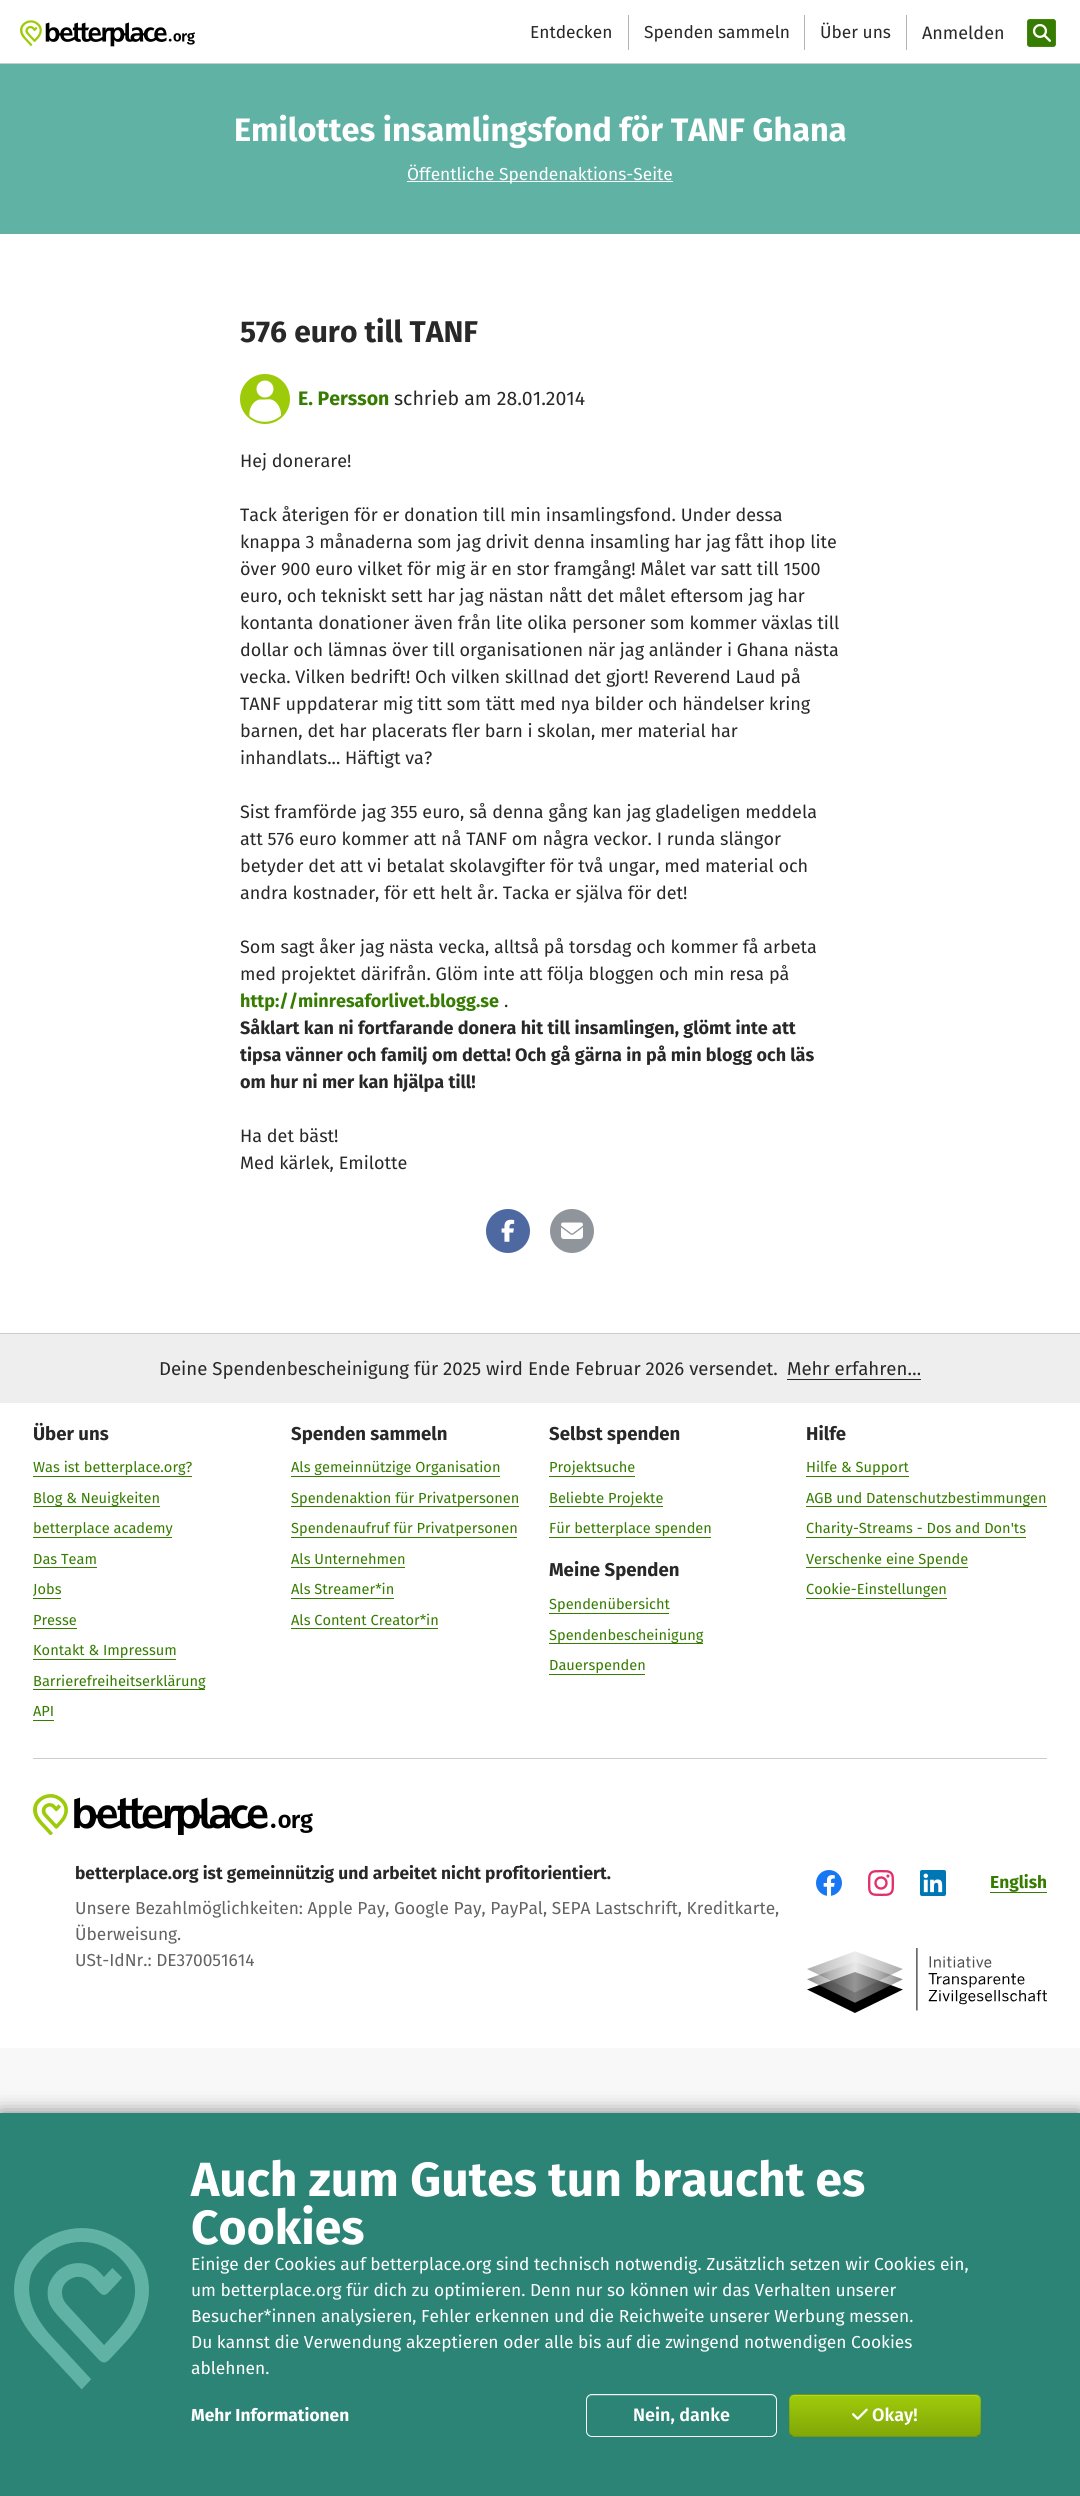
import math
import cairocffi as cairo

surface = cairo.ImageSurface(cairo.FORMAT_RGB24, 1080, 2496)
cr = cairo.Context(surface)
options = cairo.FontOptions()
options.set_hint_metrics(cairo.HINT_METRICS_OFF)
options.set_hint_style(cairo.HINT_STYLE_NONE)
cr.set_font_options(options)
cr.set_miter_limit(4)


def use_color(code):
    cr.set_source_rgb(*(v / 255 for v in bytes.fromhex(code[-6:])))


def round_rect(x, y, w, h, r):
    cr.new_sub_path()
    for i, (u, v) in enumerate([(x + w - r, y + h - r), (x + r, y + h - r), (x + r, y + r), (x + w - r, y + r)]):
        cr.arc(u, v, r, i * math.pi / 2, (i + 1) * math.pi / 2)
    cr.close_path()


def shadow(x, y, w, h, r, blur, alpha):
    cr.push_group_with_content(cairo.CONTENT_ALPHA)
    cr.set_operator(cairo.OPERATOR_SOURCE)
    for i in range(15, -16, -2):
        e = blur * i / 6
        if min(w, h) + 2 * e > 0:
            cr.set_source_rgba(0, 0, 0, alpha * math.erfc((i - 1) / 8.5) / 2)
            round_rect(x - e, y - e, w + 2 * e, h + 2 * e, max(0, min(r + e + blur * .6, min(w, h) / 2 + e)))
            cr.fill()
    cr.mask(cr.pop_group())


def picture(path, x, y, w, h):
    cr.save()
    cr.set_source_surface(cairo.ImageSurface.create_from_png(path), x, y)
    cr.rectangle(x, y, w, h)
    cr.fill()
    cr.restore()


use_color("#f8f8f8")
cr.paint()
use_color("#ffffff")
cr.rectangle(0, 0, 1080, 2048)
cr.fill()
use_color("#cccccc")
cr.rectangle(0, 63, 1080, 1)
cr.fill()
picture("img1.png", 20, 20, 175, 27)
cr.select_font_face("Fira Sans")
cr.set_font_size(17.35)
use_color("#282828")
cr.move_to(530, 38)
cr.show_text("Entdecken")
use_color("#b3b3b3")
cr.rectangle(628, 15, 1, 35)
cr.fill()
use_color("#282828")
cr.move_to(644, 38)
cr.show_text("Spenden sammeln")
use_color("#b3b3b3")
cr.rectangle(804, 15, 1, 35)
cr.fill()
use_color("#282828")
cr.move_to(820, 38)
cr.show_text("Über uns")
use_color("#b3b3b3")
cr.rectangle(906, 15, 1, 35)
cr.fill()
cr.set_font_size(18)
use_color("#282828")
cr.move_to(922, 39)
cr.show_text("Anmelden")
use_color("#357c00")
round_rect(1027.4, 19.4, 28.2, 27.2, 2.6)
cr.fill_preserve()
cr.set_line_width(0.8)
cr.stroke()
picture("img2.png", 1032, 24, 19, 18)
use_color("#60b2a4")
cr.rectangle(0, 64, 1080, 170)
cr.fill()
cr.select_font_face("Fira Sans", cairo.FONT_SLANT_NORMAL, cairo.FONT_WEIGHT_BOLD)
cr.set_font_size(32.5)
use_color("#ffffff")
cr.move_to(234, 141)
cr.show_text("Emilottes insamlingsfond för TANF Ghana")
cr.rectangle(407, 181, 266, 1)
cr.fill()
cr.select_font_face("Fira Sans")
cr.set_font_size(17.35)
cr.move_to(407, 180)
cr.show_text("Öffentliche Spendenaktions-Seite")
cr.select_font_face("Fira Sans", cairo.FONT_SLANT_NORMAL, cairo.FONT_WEIGHT_BOLD)
cr.set_font_size(30)
use_color("#282828")
cr.move_to(240, 342)
cr.show_text("576 euro till TANF")
use_color("#9ecb09")
cr.new_path()
cr.arc(265, 399, 25, 0, 2 * math.pi)
cr.fill()
use_color("#ffffff")
cr.arc(265, 389, 8.5, 0, 2 * math.pi)
cr.fill()
cr.new_path()
cr.move_to(281, 415.5)
cr.curve_to(281.5, 409.5, 277.5, 401, 271, 399.5)
cr.curve_to(269, 399, 267, 399.5, 265, 399.5)
cr.line_to(259.5, 399.5)
cr.curve_to(252.5, 401, 248.5, 409.5, 249.5, 416)
cr.curve_to(258, 424, 272.5, 423.5, 281, 415.5)
cr.close_path()
cr.fill()
cr.set_font_size(19.5)
use_color("#357c00")
cr.move_to(298, 405)
cr.show_text("E. Persson")
cr.select_font_face("Fira Sans")
use_color("#282828")
cr.move_to(394, 405)
cr.show_text("schrieb am 28.01.2014")
cr.set_font_size(18)
cr.move_to(240, 467)
cr.show_text("Hej donerare!")
cr.move_to(240, 521)
cr.show_text("Tack återigen för er donation till min insamlingsfond. Under dessa")
cr.move_to(240, 548)
cr.show_text("knappa 3 månaderna som jag drivit denna insamling har jag fått ihop lite")
cr.move_to(240, 575)
cr.show_text("över 900 euro vilket för mig är en stor framgång! Målet var satt till 1500")
cr.move_to(240, 602)
cr.show_text("euro, och tekniskt sett har jag nästan nått det målet eftersom jag har")
cr.move_to(240, 629)
cr.show_text("kontanta donationer även från lite olika personer som kommer växlas till")
cr.move_to(240, 656)
cr.show_text("dollar och lämnas över till organisationen när jag anländer i Ghana nästa")
cr.move_to(240, 683)
cr.show_text("vecka. Vilken bedrift! Och vilken skillnad det gjort! Reverend Laud på")
cr.move_to(240, 710)
cr.show_text("TANF uppdaterar mig titt som tätt med nya bilder och händelser kring")
cr.move_to(240, 737)
cr.show_text("barnen, det har placerats fler barn i skolan, mer material har")
cr.move_to(240, 764)
cr.show_text("inhandlats... Häftigt va?")
cr.move_to(240, 818)
cr.show_text("Sist framförde jag 355 euro, så denna gång kan jag gladeligen meddela")
cr.move_to(240, 845)
cr.show_text("att 576 euro kommer att nå TANF om några veckor. I runda slängor")
cr.move_to(240, 872)
cr.show_text("betyder det att vi betalat skolavgifter för två ungar, med material och")
cr.move_to(240, 899)
cr.show_text("andra kostnader, för ett helt år. Tacka er själva för det!")
cr.move_to(240, 953)
cr.show_text("Som sagt åker jag nästa vecka, alltså på torsdag och kommer få arbeta")
cr.move_to(240, 980)
cr.show_text("med projektet därifrån. Glöm inte att följa bloggen och min resa på")
cr.select_font_face("Fira Sans", cairo.FONT_SLANT_NORMAL, cairo.FONT_WEIGHT_BOLD)
use_color("#357c00")
cr.move_to(240, 1007)
cr.show_text("http://minresaforlivet.blogg.se")
cr.select_font_face("Fira Sans")
use_color("#282828")
cr.move_to(504, 1007)
cr.show_text(".")
cr.select_font_face("Fira Sans", cairo.FONT_SLANT_NORMAL, cairo.FONT_WEIGHT_BOLD)
cr.move_to(240, 1034)
cr.show_text("Såklart kan ni fortfarande donera hit till insamlingen, glömt inte att")
cr.move_to(240, 1061)
cr.show_text("tipsa vänner och familj om detta! Och gå gärna in på min blogg och läs")
cr.move_to(240, 1088)
cr.show_text("om hur ni mer kan hjälpa till!")
cr.select_font_face("Fira Sans")
cr.move_to(240, 1142)
cr.show_text("Ha det bäst!")
cr.move_to(240, 1169)
cr.show_text("Med kärlek, Emilotte")
use_color("#4e69a2")
cr.new_path()
cr.arc(508, 1231, 22, 0, 2 * math.pi)
cr.fill()
picture("img3.png", 501, 1219, 14, 23)
use_color("#90959b")
cr.arc(572, 1231, 22, 0, 2 * math.pi)
cr.fill()
picture("img4.png", 561, 1222, 22, 17)
use_color("#cccccc")
cr.rectangle(0, 1333, 1080, 1)
cr.fill()
use_color("#eeeeee")
cr.rectangle(0, 1334, 1080, 69)
cr.fill()
cr.set_font_size(18.6)
use_color("#282828")
cr.move_to(159, 1375)
cr.show_text("Deine Spendenbescheinigung für 2025 wird Ende Februar 2026 versendet.")
cr.move_to(787, 1375)
cr.show_text("Mehr erfahren…")
cr.rectangle(787, 1379, 134, 1)
cr.fill()
use_color("#cccccc")
cr.rectangle(33, 1758, 1014, 1)
cr.fill()
cr.select_font_face("Fira Sans", cairo.FONT_SLANT_NORMAL, cairo.FONT_WEIGHT_BOLD)
use_color("#282828")
cr.move_to(33, 1440)
cr.show_text("Über uns")
cr.select_font_face("Fira Sans")
cr.set_font_size(14.6)
use_color("#357c00")
cr.move_to(33, 1472)
cr.show_text("Was ist betterplace.org?")
cr.rectangle(33, 1476, 159, 1)
cr.fill()
cr.rectangle(33, 1506, 127, 1)
cr.fill()
cr.move_to(33, 1503)
cr.show_text("Blog & Neuigkeiten")
cr.move_to(33, 1533)
cr.show_text("betterplace academy")
cr.rectangle(33, 1537, 139, 1)
cr.fill()
cr.move_to(33, 1564)
cr.show_text("Das Team")
cr.rectangle(33, 1567, 64, 1)
cr.fill()
cr.move_to(33, 1594)
cr.show_text("Jobs")
cr.rectangle(33, 1598, 28, 1)
cr.fill()
cr.move_to(33, 1625)
cr.show_text("Presse")
cr.rectangle(33, 1628, 44, 1)
cr.fill()
cr.move_to(33, 1655)
cr.show_text("Kontakt & Impressum")
cr.rectangle(33, 1659, 143, 1)
cr.fill()
cr.rectangle(33, 1689, 172, 1)
cr.fill()
cr.move_to(33, 1686)
cr.show_text("Barrierefreiheitserklärung")
cr.move_to(33, 1716)
cr.show_text("API")
cr.rectangle(33, 1720, 21, 1)
cr.fill()
cr.select_font_face("Fira Sans", cairo.FONT_SLANT_NORMAL, cairo.FONT_WEIGHT_BOLD)
cr.set_font_size(18.6)
use_color("#282828")
cr.move_to(291, 1440)
cr.show_text("Spenden sammeln")
cr.select_font_face("Fira Sans")
cr.set_font_size(14.6)
use_color("#357c00")
cr.move_to(291, 1472)
cr.show_text("Als gemeinnützige Organisation")
cr.rectangle(291, 1476, 209, 1)
cr.fill()
cr.rectangle(291, 1506, 228, 1)
cr.fill()
cr.move_to(291, 1503)
cr.show_text("Spendenaktion für Privatpersonen")
cr.move_to(291, 1533)
cr.show_text("Spendenaufruf für Privatpersonen")
cr.rectangle(291, 1537, 226, 1)
cr.fill()
cr.move_to(291, 1564)
cr.show_text("Als Unternehmen")
cr.rectangle(291, 1567, 114, 1)
cr.fill()
cr.move_to(291, 1594)
cr.show_text("Als Streamer*in")
cr.rectangle(291, 1598, 103, 1)
cr.fill()
cr.move_to(291, 1625)
cr.show_text("Als Content Creator*in")
cr.rectangle(291, 1628, 147, 1)
cr.fill()
cr.select_font_face("Fira Sans", cairo.FONT_SLANT_NORMAL, cairo.FONT_WEIGHT_BOLD)
cr.set_font_size(18.6)
use_color("#282828")
cr.move_to(549, 1440)
cr.show_text("Selbst spenden")
cr.select_font_face("Fira Sans")
cr.set_font_size(14.6)
use_color("#357c00")
cr.move_to(549, 1472)
cr.show_text("Projektsuche")
cr.rectangle(549, 1476, 86, 1)
cr.fill()
cr.rectangle(549, 1506, 114, 1)
cr.fill()
cr.move_to(549, 1503)
cr.show_text("Beliebte Projekte")
cr.move_to(549, 1533)
cr.show_text("Für betterplace spenden")
cr.rectangle(549, 1537, 162, 1)
cr.fill()
cr.select_font_face("Fira Sans", cairo.FONT_SLANT_NORMAL, cairo.FONT_WEIGHT_BOLD)
cr.set_font_size(18.6)
use_color("#282828")
cr.move_to(549, 1576)
cr.show_text("Meine Spenden")
cr.select_font_face("Fira Sans")
cr.set_font_size(14.6)
use_color("#357c00")
cr.move_to(549, 1609)
cr.show_text("Spendenübersicht")
cr.rectangle(549, 1613, 120, 1)
cr.fill()
cr.rectangle(549, 1643, 154, 1)
cr.fill()
cr.move_to(549, 1640)
cr.show_text("Spendenbescheinigung")
cr.move_to(549, 1670)
cr.show_text("Dauerspenden")
cr.rectangle(549, 1674, 96, 1)
cr.fill()
cr.select_font_face("Fira Sans", cairo.FONT_SLANT_NORMAL, cairo.FONT_WEIGHT_BOLD)
cr.set_font_size(18.6)
use_color("#282828")
cr.move_to(806, 1440)
cr.show_text("Hilfe")
cr.select_font_face("Fira Sans")
cr.set_font_size(14.6)
use_color("#357c00")
cr.move_to(806, 1472)
cr.show_text("Hilfe & Support")
cr.rectangle(806, 1476, 103, 1)
cr.fill()
cr.rectangle(806, 1506, 241, 1)
cr.fill()
cr.move_to(806, 1503)
cr.show_text("AGB und Datenschutzbestimmungen")
cr.move_to(806, 1533)
cr.show_text("Charity-Streams - Dos and Don'ts")
cr.rectangle(806, 1537, 220, 1)
cr.fill()
cr.rectangle(806, 1567, 162, 1)
cr.fill()
cr.move_to(806, 1564)
cr.show_text("Verschenke eine Spende")
cr.move_to(806, 1594)
cr.show_text("Cookie-Einstellungen")
cr.rectangle(806, 1598, 141, 1)
cr.fill()
picture("img5.png", 33, 1794, 280, 41)
cr.select_font_face("Fira Sans", cairo.FONT_SLANT_NORMAL, cairo.FONT_WEIGHT_BOLD)
cr.set_font_size(17.35)
use_color("#282828")
cr.move_to(75, 1879)
cr.show_text("betterplace.org ist gemeinnützig und arbeitet nicht profitorientiert.")
cr.select_font_face("Fira Sans")
use_color("#636363")
cr.move_to(75, 1914)
cr.show_text("Unsere Bezahlmöglichkeiten: Apple Pay, Google Pay, PayPal, SEPA Lastschrift, Kreditkarte,")
cr.move_to(75, 1940)
cr.show_text("Überweisung.")
cr.move_to(75, 1966)
cr.show_text("USt-IdNr.: DE370051614")
picture("img6.png", 816, 1870, 26, 26)
picture("img7.png", 868, 1870, 26, 26)
picture("img8.png", 920, 1870, 26, 26)
cr.select_font_face("Fira Sans", cairo.FONT_SLANT_NORMAL, cairo.FONT_WEIGHT_BOLD)
use_color("#357c00")
cr.move_to(990, 1888)
cr.show_text("English")
cr.rectangle(990, 1892, 57, 1)
cr.fill()
picture("img9.png", 807, 1948, 240, 65)
use_color("#000000")
shadow(0, 2113, 1080, 383, 0, 10, 0.5)
use_color("#2b8475")
cr.rectangle(0, 2113, 1080, 383)
cr.fill()
picture("img10.png", 14, 2228, 135, 162)
cr.set_font_size(48)
use_color("#ffffff")
cr.move_to(191, 2196)
cr.show_text("Auch zum Gutes tun braucht es")
cr.move_to(191, 2244)
cr.show_text("Cookies")
cr.select_font_face("Fira Sans")
cr.set_font_size(17.35)
cr.move_to(191, 2270)
cr.show_text("Einige der Cookies auf betterplace.org sind technisch notwendig. Zusätzlich setzen wir Cookies ein,")
cr.move_to(191, 2296)
cr.show_text("um betterplace.org für dich zu optimieren. Denn nur so können wir das Verhalten unserer")
cr.move_to(191, 2322)
cr.show_text("Besucher*innen analysieren, Fehler erkennen und die Reichweite unserer Werbung messen.")
cr.move_to(191, 2348)
cr.show_text("Du kannst die Verwendung akzeptieren oder alle bis auf die zwingend notwendigen Cookies")
cr.move_to(191, 2374)
cr.show_text("ablehnen.")
cr.select_font_face("Fira Sans", cairo.FONT_SLANT_NORMAL, cairo.FONT_WEIGHT_BOLD)
cr.move_to(191, 2421)
cr.show_text("Mehr Informationen")
use_color("#559d91")
cr.new_path()
cr.move_to(592, 2396)
cr.line_to(771, 2396)
cr.curve_to(774, 2396, 776, 2398, 776, 2401)
cr.curve_to(776, 2398, 775, 2396, 772, 2395)
cr.line_to(591, 2395)
cr.curve_to(588, 2396, 587, 2398, 587, 2401)
cr.curve_to(587, 2398, 589, 2396, 592, 2396)
cr.close_path()
cr.fill()
round_rect(586.5, 2394.5, 190, 42, 5.5)
use_color("#ffffff")
cr.set_line_width(1)
cr.stroke()
cr.select_font_face("Fira Sans SemiBold")
cr.set_font_size(18)
cr.move_to(633, 2421)
cr.show_text("Nein, danke")
cr.save()
round_rect(789, 2394, 192, 43, 6)
cr.clip()
gradient = cairo.LinearGradient(885, 2354, 885, 2395)
gradient.add_color_stop_rgba(0, 0.62, 0.796, 0.039, 1)
gradient.add_color_stop_rgba(1, 0.51, 0.655, 0.031, 1)
cr.set_source(gradient)
cr.rectangle(789, 2394, 192, 1)
cr.fill()
gradient = cairo.LinearGradient(885, 2395, 885, 2436)
gradient.add_color_stop_rgba(0, 0.62, 0.796, 0.039, 1)
gradient.add_color_stop_rgba(1, 0.51, 0.655, 0.031, 1)
cr.set_source(gradient)
cr.rectangle(789, 2395, 192, 41)
cr.fill()
gradient = cairo.LinearGradient(885, 2436, 885, 2477)
gradient.add_color_stop_rgba(0, 0.62, 0.796, 0.039, 1)
gradient.add_color_stop_rgba(1, 0.51, 0.655, 0.031, 1)
cr.set_source(gradient)
cr.rectangle(789, 2436, 192, 1)
cr.fill()
cr.restore()
use_color("#b1d53b")
cr.new_path()
cr.move_to(795, 2396)
cr.line_to(975, 2396)
cr.curve_to(978, 2396, 980, 2398, 980, 2401)
cr.curve_to(980, 2398, 979, 2396, 976, 2395)
cr.line_to(794, 2395)
cr.curve_to(791, 2396, 790, 2398, 790, 2401)
cr.curve_to(790, 2398, 792, 2396, 795, 2396)
cr.close_path()
cr.fill()
cr.new_path()
cr.move_to(979, 2435)
cr.curve_to(978, 2436, 976.5, 2436.5, 975, 2436.5)
cr.line_to(795, 2436.5)
cr.curve_to(793.5, 2436.5, 792, 2436, 791, 2435)
cr.set_source_rgba(0, 0, 0, 0.25)
cr.stroke()
cr.new_path()
cr.move_to(791, 2435)
cr.curve_to(790, 2434, 789.5, 2432.5, 789.5, 2431)
cr.line_to(789.5, 2400)
cr.curve_to(789.5, 2398.5, 790, 2397, 791, 2396)
cr.curve_to(792, 2395, 793.5, 2394.5, 795, 2394.5)
cr.line_to(975, 2394.5)
cr.curve_to(976.5, 2394.5, 978, 2395, 979, 2396)
cr.curve_to(980, 2397, 980.5, 2398.5, 980.5, 2400)
cr.line_to(980.5, 2431)
cr.curve_to(980.5, 2432.5, 980, 2434, 979, 2435)
cr.set_source_rgba(0, 0, 0, 0.1)
cr.stroke()
picture("img11.png", 852, 2408, 16, 12)
use_color("#ffffff")
cr.move_to(872, 2421)
cr.show_text("Okay!")
surface.write_to_png("result.png")
